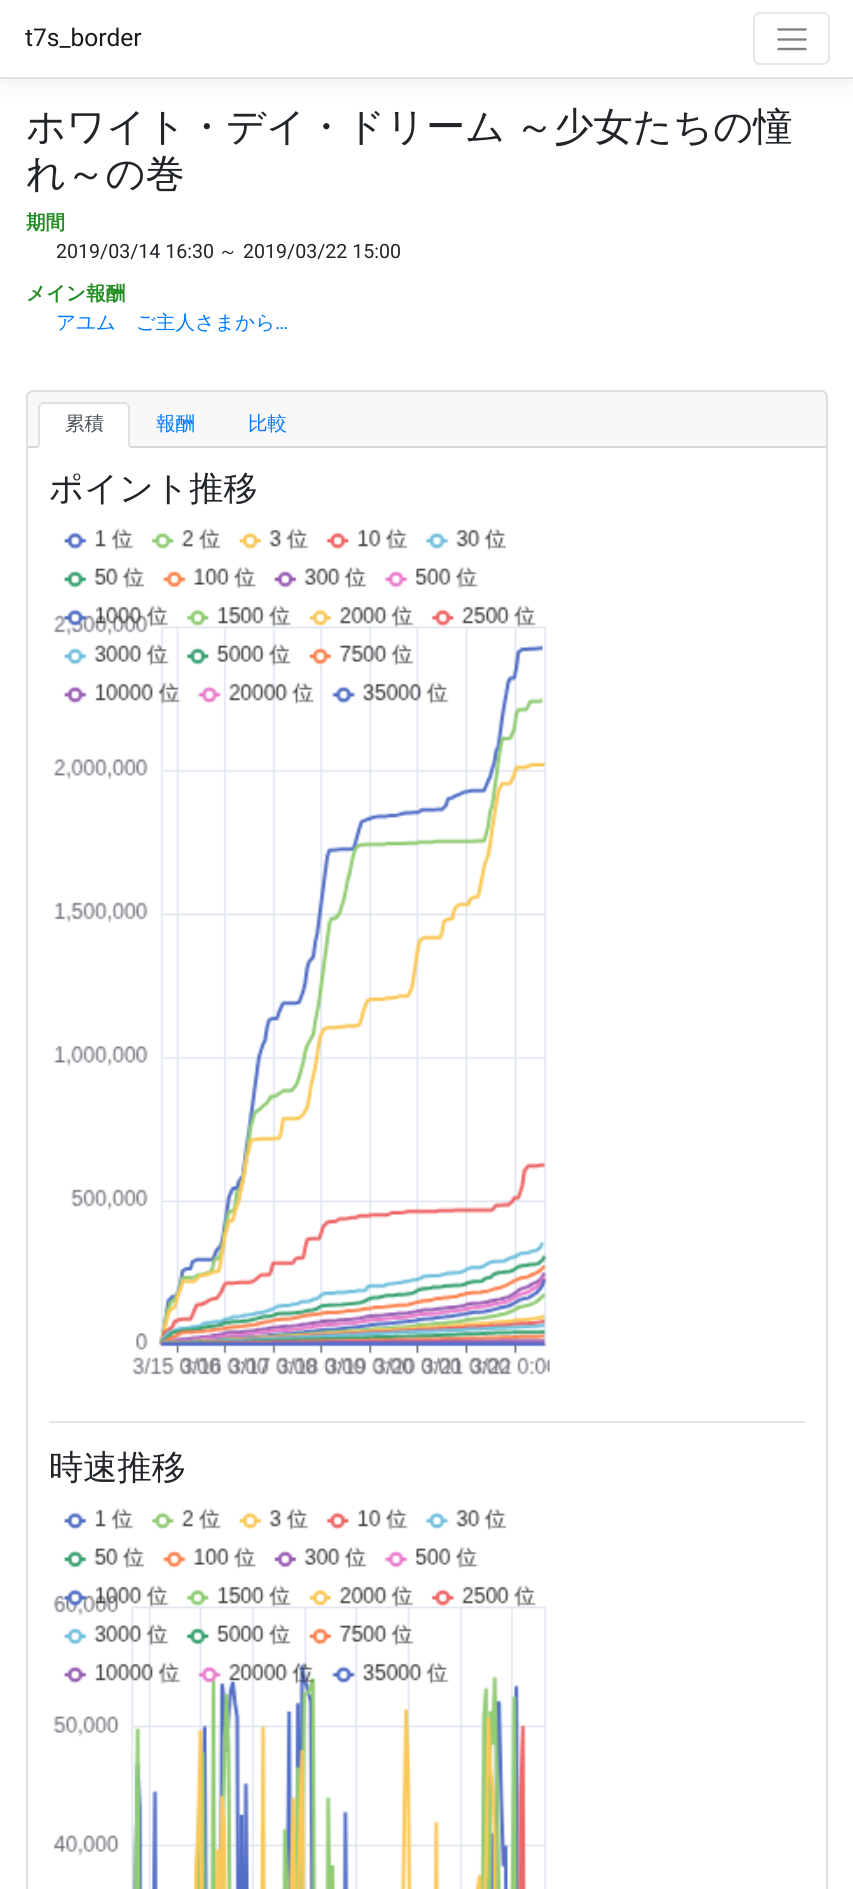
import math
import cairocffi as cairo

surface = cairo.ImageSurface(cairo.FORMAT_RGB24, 853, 1889)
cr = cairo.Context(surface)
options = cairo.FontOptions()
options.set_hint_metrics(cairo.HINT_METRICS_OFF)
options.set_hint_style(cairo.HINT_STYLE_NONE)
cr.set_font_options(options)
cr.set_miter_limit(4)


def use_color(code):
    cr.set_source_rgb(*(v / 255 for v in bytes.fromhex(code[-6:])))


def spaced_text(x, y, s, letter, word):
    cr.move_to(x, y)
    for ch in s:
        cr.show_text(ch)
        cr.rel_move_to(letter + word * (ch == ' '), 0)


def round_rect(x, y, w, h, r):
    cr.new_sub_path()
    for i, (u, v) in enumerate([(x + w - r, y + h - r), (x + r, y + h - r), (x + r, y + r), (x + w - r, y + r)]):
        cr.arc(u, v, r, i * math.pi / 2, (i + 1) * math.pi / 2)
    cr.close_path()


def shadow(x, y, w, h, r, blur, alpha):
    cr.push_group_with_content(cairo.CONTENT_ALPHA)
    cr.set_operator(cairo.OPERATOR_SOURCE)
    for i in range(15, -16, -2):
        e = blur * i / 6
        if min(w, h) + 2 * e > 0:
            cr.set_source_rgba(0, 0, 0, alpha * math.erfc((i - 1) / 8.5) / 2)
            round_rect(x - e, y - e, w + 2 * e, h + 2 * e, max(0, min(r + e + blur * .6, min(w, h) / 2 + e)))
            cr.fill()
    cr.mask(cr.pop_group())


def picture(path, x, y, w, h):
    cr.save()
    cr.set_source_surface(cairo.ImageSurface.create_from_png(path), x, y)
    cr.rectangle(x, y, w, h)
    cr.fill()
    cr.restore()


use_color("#ffffff")
cr.paint()
use_color("#000000")
shadow(0, 7, 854, 79, 0, 9, 0.05)
use_color("#ffffff")
cr.rectangle(0, 0, 853, 77)
cr.fill()
use_color("#dee2e6")
cr.rectangle(0, 77, 853, 2)
cr.fill()
cr.select_font_face("Roboto")
cr.set_font_size(24.5)
use_color("#1a1a1a")
cr.move_to(25, 46)
cr.show_text("t7s_border")
round_rect(754, 13, 75, 51, 6)
use_color("#e6e6e6")
cr.stroke()
cr.new_path()
cr.move_to(778.5, 29.5)
cr.line_to(805.5, 29.5)
cr.move_to(778.5, 39.5)
cr.line_to(805.5, 39.5)
cr.move_to(778.5, 49)
cr.line_to(805.5, 49)
use_color("#808080")
cr.set_line_width(2.4)
cr.set_line_cap(cairo.LINE_CAP_ROUND)
cr.stroke()
cr.select_font_face("WenQuanYi Zen Hei Medium")
cr.set_font_size(39.25)
use_color("#212529")
spaced_text(26, 140, "ホワイト・デイ・ドリーム ～少女たちの憧", 0, -2)
cr.move_to(26, 187)
cr.show_text("れ～の巻")
cr.select_font_face("WenQuanYi Zen Hei", cairo.FONT_SLANT_NORMAL, cairo.FONT_WEIGHT_BOLD)
cr.set_font_size(19.6)
use_color("#228b22")
cr.move_to(26, 229)
cr.show_text("期間")
cr.select_font_face("Roboto")
use_color("#212529")
cr.move_to(56, 258)
cr.show_text("2019/03/14 16:30")
cr.select_font_face("WenQuanYi Zen Hei Medium")
cr.move_to(218, 258)
cr.show_text("～")
cr.select_font_face("Roboto")
cr.move_to(243, 258)
cr.show_text("2019/03/22 15:00")
cr.select_font_face("WenQuanYi Zen Hei", cairo.FONT_SLANT_NORMAL, cairo.FONT_WEIGHT_BOLD)
use_color("#228b22")
cr.move_to(26, 300)
cr.show_text("メイン報酬")
cr.select_font_face("WenQuanYi Zen Hei Medium")
use_color("#007bff")
cr.move_to(56, 329)
cr.show_text("アユム　ご主人さまから")
cr.select_font_face("Roboto")
cr.move_to(275, 329)
cr.show_text("…")
round_rect(27, 391, 800, 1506, 6)
use_color("#dfdfdf")
cr.set_line_width(2)
cr.set_line_cap(cairo.LINE_CAP_BUTT)
cr.stroke()
cr.set_source_rgba(0, 0, 0, 0.03)
cr.rectangle(28, 392, 798, 54)
cr.fill()
use_color("#d8d8d8")
cr.rectangle(28, 446, 798, 2)
cr.fill()
use_color("#ffffff")
cr.new_path()
cr.move_to(46, 403)
cr.line_to(123, 403)
cr.curve_to(127, 403, 130, 406, 130, 410)
cr.line_to(130, 448)
cr.line_to(39, 448)
cr.line_to(39, 410)
cr.curve_to(39, 406, 42, 403, 46, 403)
cr.close_path()
cr.fill()
use_color("#dee2e6")
cr.new_path()
cr.move_to(45, 404)
cr.curve_to(44, 404, 42, 404, 41, 405)
cr.line_to(40, 404)
cr.line_to(42, 402)
cr.line_to(126, 402)
cr.line_to(128, 404)
cr.line_to(127, 405)
cr.curve_to(126, 404, 124, 404, 123, 404)
cr.close_path()
cr.fill()
cr.new_path()
cr.move_to(130, 406)
cr.line_to(130, 448)
cr.line_to(128, 446)
cr.line_to(128, 409)
cr.curve_to(128, 408, 128, 406, 127, 405)
cr.line_to(128, 404)
cr.close_path()
cr.fill()
use_color("#ffffff")
cr.new_path()
cr.move_to(130, 448)
cr.line_to(128, 446)
cr.line_to(40, 446)
cr.line_to(38, 448)
cr.close_path()
cr.fill()
use_color("#dee2e6")
cr.new_path()
cr.move_to(38, 448)
cr.line_to(38, 406)
cr.line_to(40, 404)
cr.line_to(41, 405)
cr.curve_to(40, 406, 40, 408, 40, 409)
cr.line_to(40, 446)
cr.close_path()
cr.fill()
cr.select_font_face("WenQuanYi Zen Hei Medium")
use_color("#495057")
cr.move_to(65, 430)
cr.show_text("累積")
use_color("#007bff")
cr.move_to(156, 430)
cr.show_text("報酬")
cr.move_to(248, 430)
cr.show_text("比較")
cr.set_font_size(34.25)
use_color("#212529")
cr.move_to(49, 500)
cr.show_text("ポイント推移")
picture("img1.png", 53, 528, 497, 847)
use_color("#e6e6e6")
cr.rectangle(49, 1421, 756, 2)
cr.fill()
use_color("#212529")
cr.move_to(49, 1479)
cr.show_text("時速推移")
picture("img2.png", 53, 1508, 494, 381)
surface.write_to_png("result.png")
